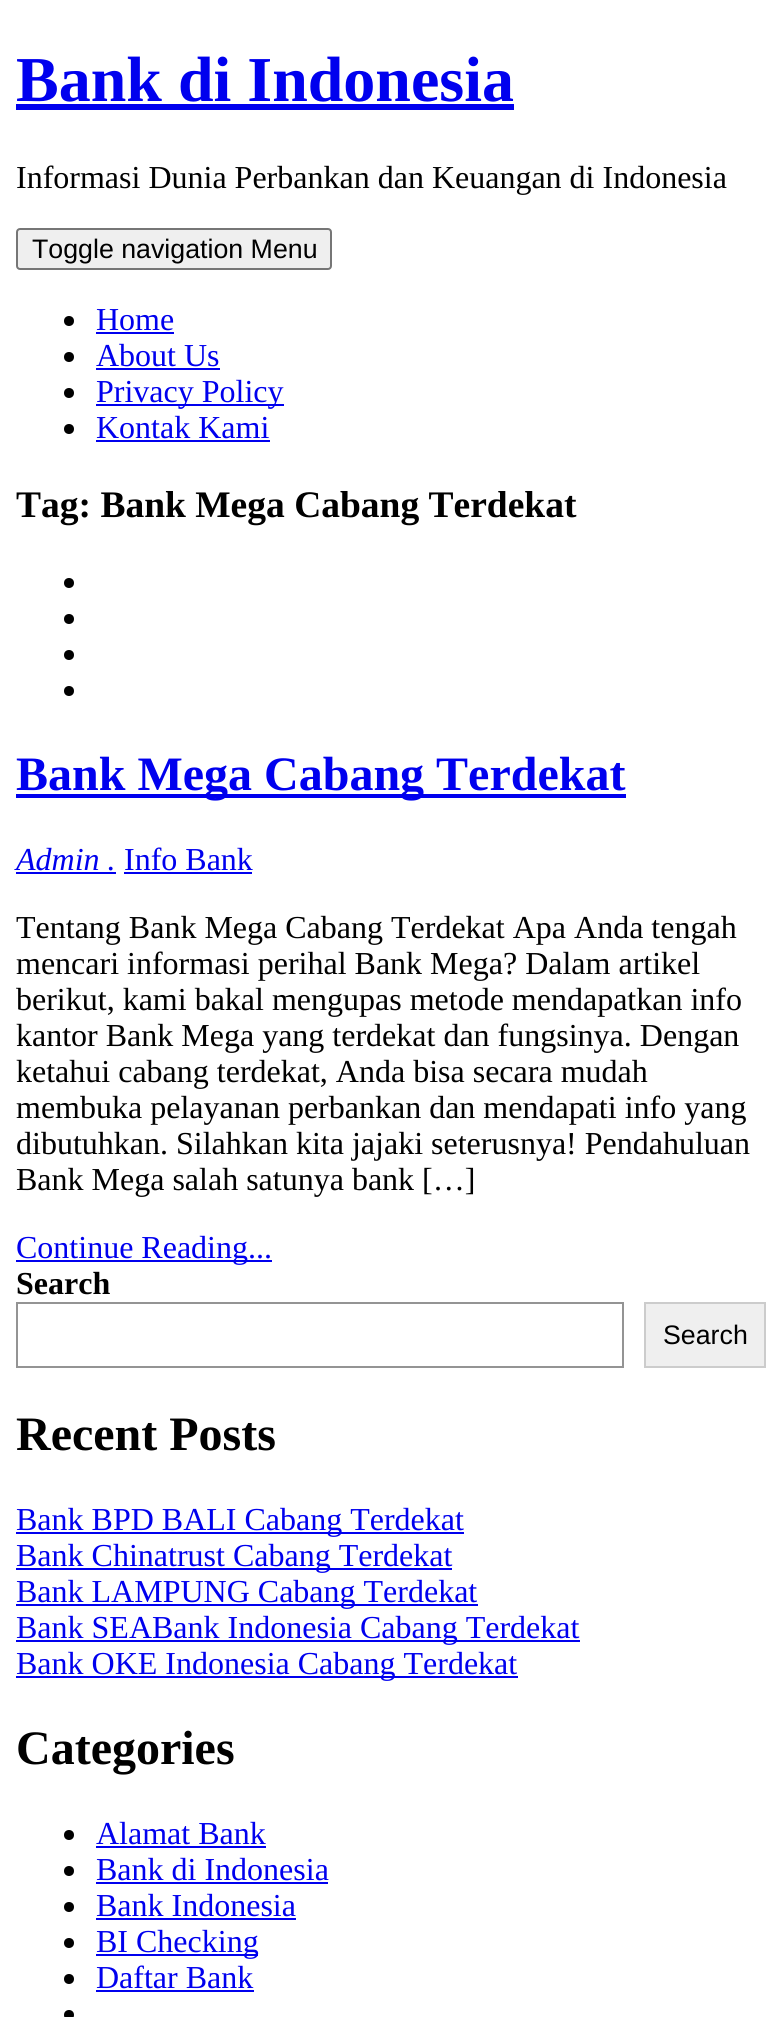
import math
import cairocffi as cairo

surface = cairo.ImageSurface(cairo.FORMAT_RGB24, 782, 2017)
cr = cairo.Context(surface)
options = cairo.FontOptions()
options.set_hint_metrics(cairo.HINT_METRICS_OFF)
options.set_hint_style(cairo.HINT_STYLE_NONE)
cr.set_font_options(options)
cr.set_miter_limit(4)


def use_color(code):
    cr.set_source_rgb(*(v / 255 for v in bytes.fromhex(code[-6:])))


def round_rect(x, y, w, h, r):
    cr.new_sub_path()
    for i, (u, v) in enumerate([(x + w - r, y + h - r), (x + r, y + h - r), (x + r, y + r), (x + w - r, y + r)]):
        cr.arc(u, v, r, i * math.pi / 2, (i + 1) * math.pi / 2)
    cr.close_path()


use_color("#ffffff")
cr.paint()
cr.select_font_face("Liberation Serif", cairo.FONT_SLANT_NORMAL, cairo.FONT_WEIGHT_BOLD)
cr.set_font_size(64)
use_color("#0000ee")
cr.move_to(16, 101)
cr.show_text("Bank di Indonesia")
cr.rectangle(16, 104, 498, 6)
cr.fill()
cr.select_font_face("Liberation Serif")
cr.set_font_size(32)
use_color("#000000")
cr.move_to(16, 188)
cr.show_text("Informasi Dunia Perbankan dan Keuangan di Indonesia")
use_color("#efefef")
round_rect(17, 229, 314, 40, 3)
cr.fill_preserve()
use_color("#767676")
cr.stroke()
cr.select_font_face("Liberation Sans")
cr.set_font_size(26.75)
use_color("#000000")
cr.move_to(32, 258)
cr.show_text("Toggle navigation Menu")
cr.new_path()
cr.arc(69, 321, 5, 0, 2 * math.pi)
cr.fill()
cr.select_font_face("Liberation Serif")
cr.set_font_size(32)
use_color("#0000ee")
cr.move_to(96, 330)
cr.show_text("Home")
cr.rectangle(96, 332, 78, 2)
cr.fill()
use_color("#000000")
cr.arc(69, 357, 5, 0, 2 * math.pi)
cr.fill()
use_color("#0000ee")
cr.move_to(96, 366)
cr.show_text("About Us")
cr.rectangle(96, 368, 124, 2)
cr.fill()
use_color("#000000")
cr.arc(69, 393, 5, 0, 2 * math.pi)
cr.fill()
use_color("#0000ee")
cr.rectangle(96, 404, 188, 2)
cr.fill()
cr.move_to(96, 402)
cr.show_text("Privacy Policy")
use_color("#000000")
cr.new_path()
cr.arc(69, 429, 5, 0, 2 * math.pi)
cr.fill()
use_color("#0000ee")
cr.move_to(96, 438)
cr.show_text("Kontak Kami")
cr.rectangle(96, 440, 174, 2)
cr.fill()
cr.select_font_face("Liberation Serif", cairo.FONT_SLANT_NORMAL, cairo.FONT_WEIGHT_BOLD)
cr.set_font_size(37.5)
use_color("#000000")
cr.move_to(16, 517)
cr.show_text("Tag: Bank Mega Cabang Terdekat")
cr.new_path()
cr.arc(69, 583, 5, 0, 2 * math.pi)
cr.fill()
cr.arc(69, 619, 5, 0, 2 * math.pi)
cr.fill()
cr.arc(69, 655, 5, 0, 2 * math.pi)
cr.fill()
cr.arc(69, 691, 5, 0, 2 * math.pi)
cr.fill()
use_color("#0000ee")
cr.rectangle(16, 794, 610, 4)
cr.fill()
cr.set_font_size(48)
cr.move_to(16, 790)
cr.show_text("Bank Mega Cabang Terdekat")
cr.select_font_face("Liberation Serif", cairo.FONT_SLANT_ITALIC)
cr.set_font_size(32)
cr.move_to(16, 870)
cr.show_text("Admin .")
cr.rectangle(16, 872, 100, 2)
cr.fill()
cr.select_font_face("Liberation Serif")
cr.move_to(124, 870)
cr.show_text("Info Bank")
cr.rectangle(124, 872, 128, 2)
cr.fill()
use_color("#000000")
cr.move_to(16, 938)
cr.show_text("Tentang Bank Mega Cabang Terdekat Apa Anda tengah")
cr.move_to(16, 974)
cr.show_text("mencari informasi perihal Bank Mega? Dalam artikel")
cr.move_to(16, 1010)
cr.show_text("berikut, kami bakal mengupas metode mendapatkan info")
cr.move_to(16, 1046)
cr.show_text("kantor Bank Mega yang terdekat dan fungsinya. Dengan")
cr.move_to(16, 1082)
cr.show_text("ketahui cabang terdekat, Anda bisa secara mudah")
cr.move_to(16, 1118)
cr.show_text("membuka pelayanan perbankan dan mendapati info yang")
cr.move_to(16, 1154)
cr.show_text("dibutuhkan. Silahkan kita jajaki seterusnya! Pendahuluan")
cr.move_to(16, 1190)
cr.show_text("Bank Mega salah satunya bank […]")
use_color("#0000ee")
cr.rectangle(16, 1260, 256, 2)
cr.fill()
cr.move_to(16, 1258)
cr.show_text("Continue Reading...")
cr.select_font_face("Liberation Serif", cairo.FONT_SLANT_NORMAL, cairo.FONT_WEIGHT_BOLD)
use_color("#000000")
cr.move_to(16, 1294)
cr.show_text("Search")
cr.rectangle(17, 1303, 606, 64)
use_color("#949494")
cr.stroke()
use_color("#efefef")
cr.rectangle(645, 1303, 120, 64)
cr.fill_preserve()
use_color("#cccccc")
cr.stroke()
cr.select_font_face("Liberation Sans")
cr.set_font_size(26.75)
use_color("#000000")
cr.move_to(663, 1344)
cr.show_text("Search")
cr.select_font_face("Liberation Serif", cairo.FONT_SLANT_NORMAL, cairo.FONT_WEIGHT_BOLD)
cr.set_font_size(48)
cr.move_to(16, 1450)
cr.show_text("Recent Posts")
use_color("#0000ee")
cr.rectangle(16, 1532, 448, 2)
cr.fill()
cr.select_font_face("Liberation Serif")
cr.set_font_size(32)
cr.move_to(16, 1530)
cr.show_text("Bank BPD BALI Cabang Terdekat")
cr.rectangle(16, 1568, 436, 2)
cr.fill()
cr.move_to(16, 1566)
cr.show_text("Bank Chinatrust Cabang Terdekat")
cr.rectangle(16, 1604, 462, 2)
cr.fill()
cr.move_to(16, 1602)
cr.show_text("Bank LAMPUNG Cabang Terdekat")
cr.rectangle(16, 1640, 564, 2)
cr.fill()
cr.move_to(16, 1638)
cr.show_text("Bank SEABank Indonesia Cabang Terdekat")
cr.rectangle(16, 1676, 502, 2)
cr.fill()
cr.move_to(16, 1674)
cr.show_text("Bank OKE Indonesia Cabang Terdekat")
cr.select_font_face("Liberation Serif", cairo.FONT_SLANT_NORMAL, cairo.FONT_WEIGHT_BOLD)
cr.set_font_size(48)
use_color("#000000")
cr.move_to(16, 1764)
cr.show_text("Categories")
cr.new_path()
cr.arc(69, 1835, 5, 0, 2 * math.pi)
cr.fill()
cr.select_font_face("Liberation Serif")
cr.set_font_size(32)
use_color("#0000ee")
cr.move_to(96, 1844)
cr.show_text("Alamat Bank")
cr.rectangle(96, 1846, 170, 2)
cr.fill()
use_color("#000000")
cr.arc(69, 1871, 5, 0, 2 * math.pi)
cr.fill()
use_color("#0000ee")
cr.move_to(96, 1880)
cr.show_text("Bank di Indonesia")
cr.rectangle(96, 1882, 232, 2)
cr.fill()
use_color("#000000")
cr.arc(69, 1907, 5, 0, 2 * math.pi)
cr.fill()
use_color("#0000ee")
cr.move_to(96, 1916)
cr.show_text("Bank Indonesia")
cr.rectangle(96, 1918, 200, 2)
cr.fill()
use_color("#000000")
cr.arc(69, 1943, 5, 0, 2 * math.pi)
cr.fill()
use_color("#0000ee")
cr.rectangle(96, 1954, 162, 2)
cr.fill()
cr.move_to(96, 1952)
cr.show_text("BI Checking")
use_color("#000000")
cr.new_path()
cr.arc(69, 1979, 5, 0, 2 * math.pi)
cr.fill()
use_color("#0000ee")
cr.move_to(96, 1988)
cr.show_text("Daftar Bank")
cr.rectangle(96, 1990, 158, 2)
cr.fill()
use_color("#000000")
cr.arc(69, 2015, 5, 0, 2 * math.pi)
cr.fill()
surface.write_to_png("result.png")
